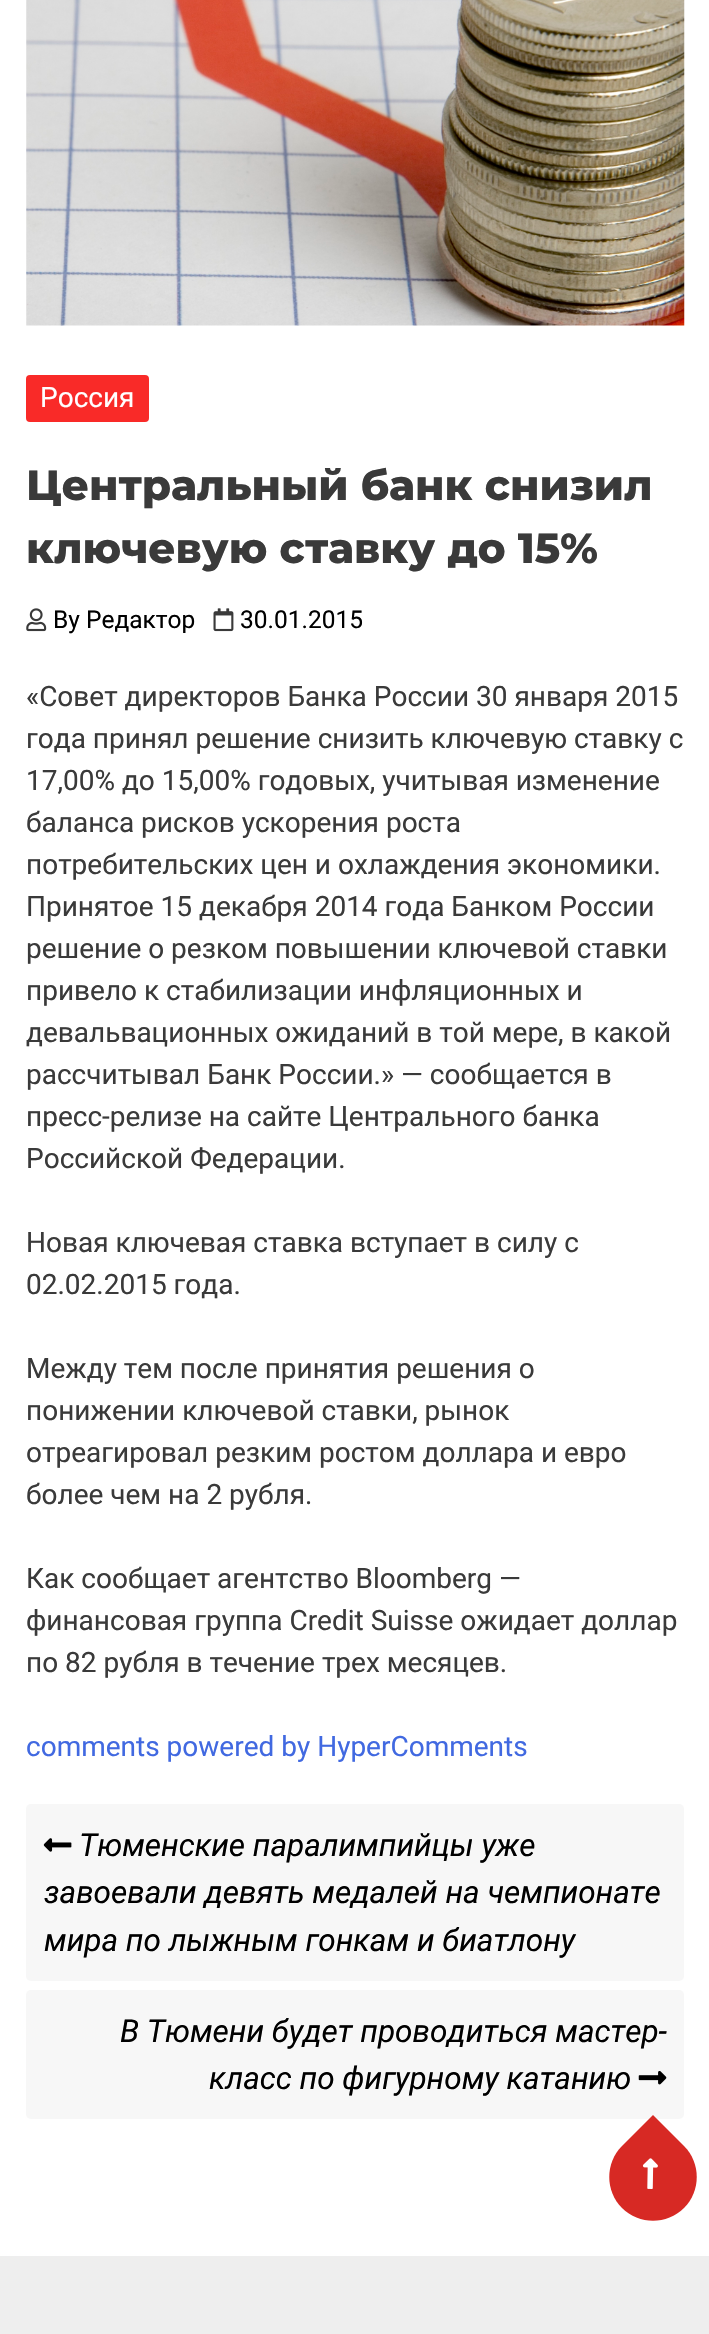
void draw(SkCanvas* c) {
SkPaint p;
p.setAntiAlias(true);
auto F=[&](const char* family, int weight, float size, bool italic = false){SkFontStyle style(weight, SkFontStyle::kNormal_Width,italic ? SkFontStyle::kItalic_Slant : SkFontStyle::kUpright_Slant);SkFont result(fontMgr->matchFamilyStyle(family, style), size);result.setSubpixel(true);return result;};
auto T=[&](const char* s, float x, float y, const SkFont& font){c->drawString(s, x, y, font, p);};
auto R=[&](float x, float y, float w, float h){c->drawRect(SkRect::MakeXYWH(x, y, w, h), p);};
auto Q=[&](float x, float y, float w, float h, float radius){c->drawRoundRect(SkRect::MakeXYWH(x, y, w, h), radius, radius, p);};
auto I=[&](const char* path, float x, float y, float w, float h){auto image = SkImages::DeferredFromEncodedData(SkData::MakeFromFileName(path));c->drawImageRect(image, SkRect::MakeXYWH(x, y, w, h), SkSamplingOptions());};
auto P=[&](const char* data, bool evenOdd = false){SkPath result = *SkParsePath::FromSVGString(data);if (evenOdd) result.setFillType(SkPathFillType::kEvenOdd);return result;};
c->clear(0xffffffff);
I("1.png",26,0,659,326);
p.setColor(0xfff92a28);
Q(26,375,123,47,4);
auto f1 = F("Roboto",400,28);
p.setColor(0xffffffff);
T("Россия",40,407,f1);
auto f2 = F("Montserrat",800,42);
p.setColor(0xff3a3a3a);
T("Центральный банк снизил",26,500,f2);
T("ключевую ставку до 15%",26,563,f2);
I("2.png",26,608,21,24);
auto f3 = F("Roboto",400,24.5);
p.setColor(0xff000000);
T("By Редактор",53,628,f3);
I("3.png",213,608,21,24);
T("30.01.2015",240,628,f3);
p.setColor(0xff3a3a3a);
T("«Совет директоров Банка России 30 января 2015",26,706,f1);
T("года принял решение снизить ключевую ставку c",26,748,f1);
T("17,00% до 15,00% годовых, учитывая изменение",26,790,f1);
T("баланса рисков ускорения роста",26,832,f1);
T("потребительских цен и охлаждения экономики.",26,874,f1);
T("Принятое 15 декабря 2014 года Банком России",26,916,f1);
T("решение о резком повышении ключевой ставки",26,958,f1);
T("привело к стабилизации инфляционных и",26,1000,f1);
T("девальвационных ожиданий в той мере, в какой",26,1042,f1);
T("рассчитывал Банк России.» — сообщается в",26,1084,f1);
T("пресс-релизе на сайте Центрального банка",26,1126,f1);
T("Российской Федерации.",26,1168,f1);
T("Новая ключевая ставка вступает в силу с",26,1252,f1);
T("02.02.2015 года.",26,1294,f1);
T("Между тем после принятия решения о",26,1378,f1);
T("понижении ключевой ставки, рынок",26,1420,f1);
T("отреагировал резким ростом доллара и евро",26,1462,f1);
T("более чем на 2 рубля.",26,1504,f1);
T("Как сообщает агентство Bloomberg —",26,1588,f1);
T("финансовая группа Credit Suisse ожидает доллар",26,1630,f1);
T("по 82 рубля в течение трех месяцев.",26,1672,f1);
p.setColor(0xff4169e1);
T("comments powered by HyperComments",26,1756,f1);
p.setColor(0xfff7f7f7);
Q(26,1804,658,177,5);
I("4.png",43,1838,29,14);
auto f4 = F("Roboto",400,31.5,true);
p.setColor(0xff000000);
T("Тюменские паралимпийцы уже",79,1856,f4);
T("завоевали девять медалей на чемпионате",44,1903,f4);
T("мира по лыжным гонкам и биатлону",44,1951,f4);
p.setColor(0xfff7f7f7);
Q(26,1990,658,129,5);
p.setColor(0xff000000);
T("В Тюмени будет проводиться мастер-",120,2042,f4);
T("класс по фигурному катанию",209,2089,f4);
I("5.png",638,2071,29,14);
p.setColor(0xffd72924);
c->drawPath(P("M622 2146l31-31l31 31c17 17 17 45 0 62c-17 17-45 17-62 0c-17-17-17-45 0-62z"),p);
I("6.png",642,2158,16,31);
p.setColor(0xffeeeeee);
R(0,2256,709,78);
}
